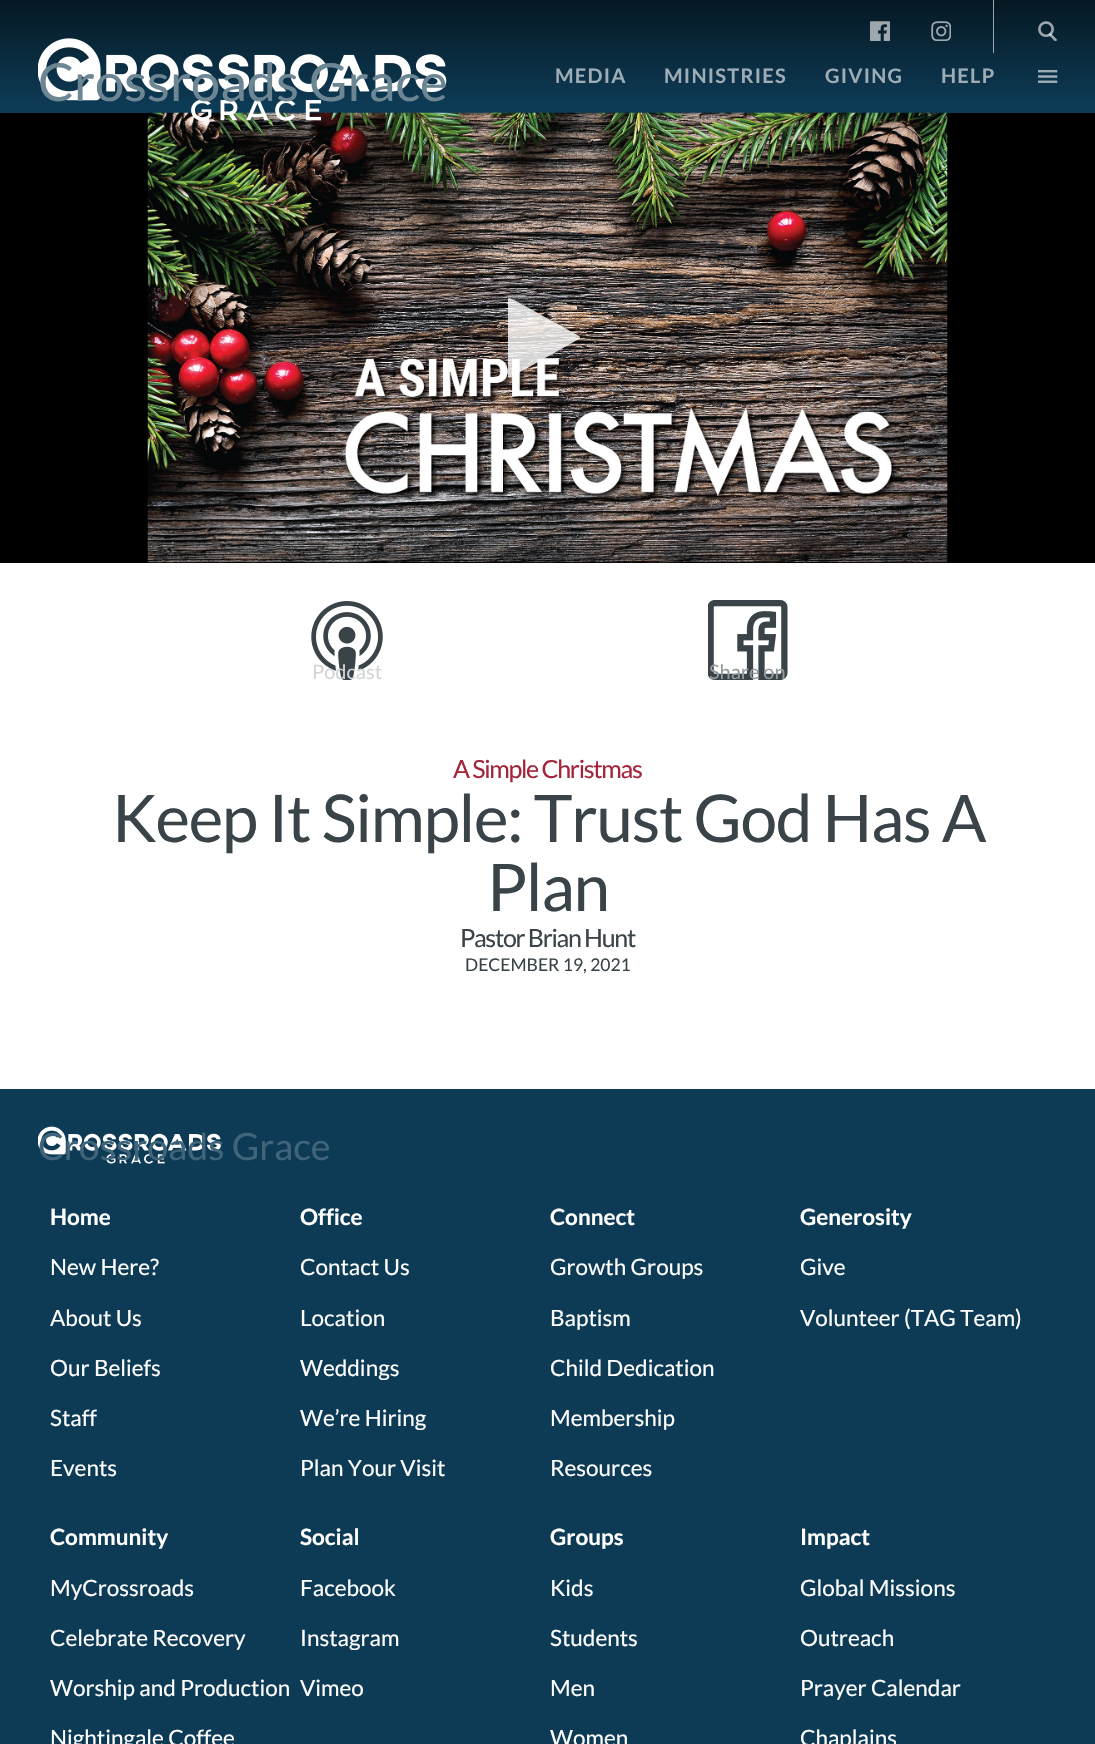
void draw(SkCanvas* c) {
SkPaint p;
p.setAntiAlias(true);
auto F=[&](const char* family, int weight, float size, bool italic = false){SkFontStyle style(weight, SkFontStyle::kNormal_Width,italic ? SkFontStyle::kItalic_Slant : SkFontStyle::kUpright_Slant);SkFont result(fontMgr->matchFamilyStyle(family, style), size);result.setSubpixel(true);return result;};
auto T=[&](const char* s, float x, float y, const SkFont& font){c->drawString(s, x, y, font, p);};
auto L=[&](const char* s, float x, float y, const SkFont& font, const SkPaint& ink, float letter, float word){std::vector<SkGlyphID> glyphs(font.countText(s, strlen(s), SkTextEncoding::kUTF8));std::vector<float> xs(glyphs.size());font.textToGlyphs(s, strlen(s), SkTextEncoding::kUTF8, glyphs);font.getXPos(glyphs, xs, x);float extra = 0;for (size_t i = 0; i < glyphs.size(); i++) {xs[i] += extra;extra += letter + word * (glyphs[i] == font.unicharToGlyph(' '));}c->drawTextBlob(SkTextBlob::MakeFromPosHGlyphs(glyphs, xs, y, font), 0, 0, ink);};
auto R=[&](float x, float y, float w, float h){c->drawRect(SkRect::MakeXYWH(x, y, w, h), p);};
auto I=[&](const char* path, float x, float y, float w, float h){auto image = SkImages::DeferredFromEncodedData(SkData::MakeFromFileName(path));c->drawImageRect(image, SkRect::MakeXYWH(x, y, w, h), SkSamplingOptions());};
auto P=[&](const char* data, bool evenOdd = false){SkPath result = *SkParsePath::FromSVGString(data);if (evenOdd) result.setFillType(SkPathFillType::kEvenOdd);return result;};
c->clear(0xff0d3b56);
{
const SkColor colors[] = {0x00000000,0x99000000};
const float stops[] = {.05,1};
const SkPoint ends[] = {{548,113}, {548,0}};
p.setShader(SkGradientShader::MakeLinear(ends, colors, stops, 2, SkTileMode::kClamp));
p.setAlpha(255);
}
R(0,0,1095,102);
I("1.png",870,21,20,20);
I("2.png",931,21,20,20);
p.setShader(nullptr);
p.setColor(0x99ffffff);
R(993,0,1,53);
I("3.png",1038,21,19,20);
p.setColor(0xff000000);
R(0,113,1095,450);
I("6.png",147,112,801,451);
I("4.png",38,38,409,83);
auto f1 = F("Lato",400,52.5);
p.setColor(0xff6d8694);
T("Crossroads Grace",38,101,f1);
auto f2 = F("Lato",700,20);
p.setColor(0xff9dacb5);
L("MEDIA",555,83,f2,p,1.25,0);
L("MINISTRIES",664,83,f2,p,1.25,0);
L("GIVING",825,83,f2,p,1.25,0);
L("HELP",941,83,f2,p,1.25,0);
I("5.png",1038,70,20,13);
p.setColor(0xffffffff);
R(0,563,1095,526);
p.setColor(0xccffffff);
c->drawPath(P("M579 339l-57 32c-1 0-12 9-14 6v-78l1-1c2-1 42 23 47 25l23 13l1 1c0 1 0 2-1 2z"),p);
I("7.png",311,601,72,79);
auto f3 = F("Lato",400,20);
p.setColor(0xffd3d5d6);
T("Podcast",312,679,f3);
I("8.png",708,600,80,80);
p.setColor(0xff959b9d);
T("Share on",709,679,f3);
auto f4 = F("Lato",400,25);
p.setColor(0xffa4243b);
L("A Simple Christmas",453,778,f4,p,-1.3,0);
auto f5 = F("Lato",400,65.75);
p.setColor(0xff394348);
L("Keep It Simple: Trust God Has A",112,842,f5,p,-1.3,0);
L("Plan",487,911,f5,p,-1.3,0);
L("Pastor Brian Hunt",460,947,f4,p,-1.3,0);
auto f6 = F("Lato",400,17.5);
T("DECEMBER 19, 2021",465,971,f6);
I("9.png",38,1126,183,38);
auto f7 = F("Lato",400,37.5);
p.setColor(0xff40657a);
T("Crossroads Grace",38,1160,f7);
auto f8 = F("Lato",700,22.5);
p.setColor(0xffffffff);
T("Home",50,1225,f8);
auto f9 = F("Lato",400,22.5);
T("New Here?",50,1275,f9);
T("About Us",50,1326,f9);
T("Our Beliefs",50,1376,f9);
T("Staff",50,1426,f9);
T("Events",50,1476,f9);
T("Office",300,1225,f8);
T("Contact Us",300,1275,f9);
T("Location",300,1326,f9);
T("Weddings",300,1376,f9);
T("We’re Hiring",300,1426,f9);
T("Plan Your Visit",300,1476,f9);
T("Connect",550,1225,f8);
T("Growth Groups",550,1275,f9);
T("Baptism",550,1326,f9);
T("Child Dedication",550,1376,f9);
T("Membership",550,1426,f9);
T("Resources",550,1476,f9);
T("Generosity",800,1225,f8);
T("Give",800,1275,f9);
T("Volunteer (TAG Team)",800,1326,f9);
T("Community",50,1545,f8);
T("MyCrossroads",50,1596,f9);
T("Celebrate Recovery",50,1646,f9);
T("Worship and Production",50,1696,f9);
T("Nightingale Coffee",50,1746,f9);
T("Social",300,1545,f8);
T("Facebook",300,1596,f9);
T("Instagram",300,1646,f9);
T("Vimeo",300,1696,f9);
T("Groups",550,1545,f8);
T("Kids",550,1596,f9);
T("Students",550,1646,f9);
T("Men",550,1696,f9);
T("Women",550,1746,f9);
T("Impact",800,1545,f8);
T("Global Missions",800,1596,f9);
T("Outreach",800,1646,f9);
T("Prayer Calendar",800,1696,f9);
T("Chaplains",800,1746,f9);
}
